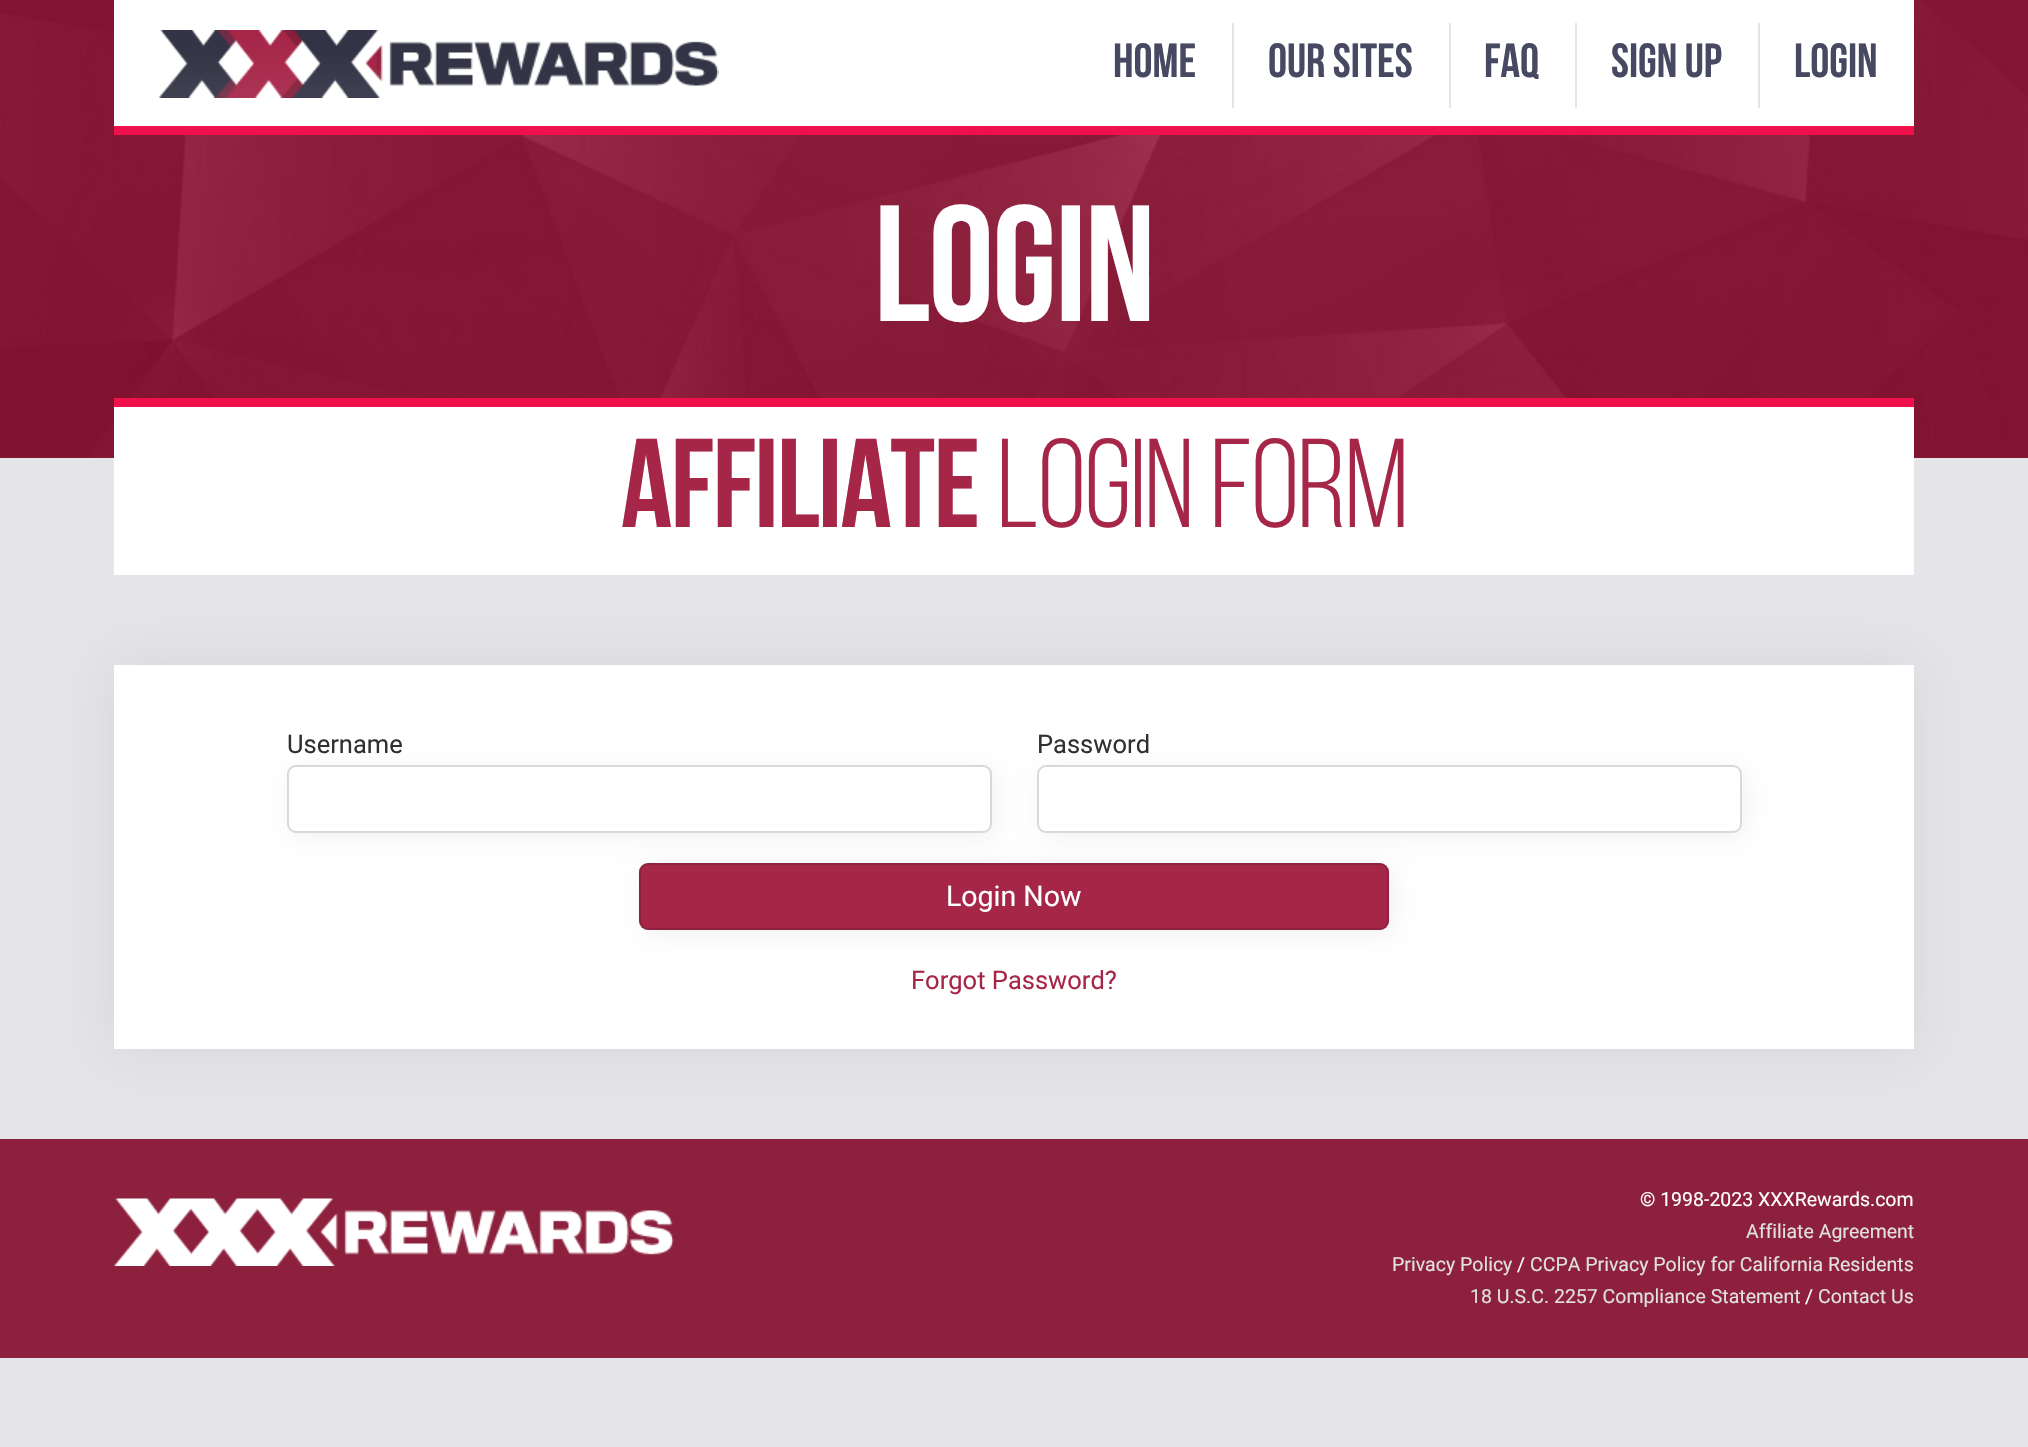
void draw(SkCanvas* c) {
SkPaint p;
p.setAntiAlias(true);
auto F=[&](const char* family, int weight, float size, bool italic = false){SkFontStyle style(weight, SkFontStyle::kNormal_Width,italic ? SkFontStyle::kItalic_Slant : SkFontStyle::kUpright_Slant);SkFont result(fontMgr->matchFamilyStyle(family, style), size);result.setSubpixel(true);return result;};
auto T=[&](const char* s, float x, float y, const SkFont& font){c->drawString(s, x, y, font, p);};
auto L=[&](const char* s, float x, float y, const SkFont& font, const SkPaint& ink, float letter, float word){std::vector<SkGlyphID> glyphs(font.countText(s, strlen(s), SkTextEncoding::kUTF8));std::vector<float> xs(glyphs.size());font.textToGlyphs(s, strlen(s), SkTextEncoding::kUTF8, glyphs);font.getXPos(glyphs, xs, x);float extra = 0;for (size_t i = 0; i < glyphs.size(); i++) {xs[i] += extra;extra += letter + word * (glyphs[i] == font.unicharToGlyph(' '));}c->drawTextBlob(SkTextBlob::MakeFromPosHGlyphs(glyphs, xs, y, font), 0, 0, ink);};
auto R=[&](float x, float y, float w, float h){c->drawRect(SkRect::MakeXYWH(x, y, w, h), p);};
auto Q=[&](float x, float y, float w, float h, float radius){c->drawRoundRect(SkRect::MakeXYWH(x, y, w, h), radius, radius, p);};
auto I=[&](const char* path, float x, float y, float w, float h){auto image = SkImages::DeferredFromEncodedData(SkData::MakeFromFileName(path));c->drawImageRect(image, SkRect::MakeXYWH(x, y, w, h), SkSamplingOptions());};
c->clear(0xffe5e4e9);
p.setColor(0xff8c203d);
R(0,457,2028,1);
I("2.png",0,0,2028,458);
p.setColor(0xffffffff);
R(114,0,1800,126);
p.setColor(0xffef104c);
R(114,126,1800,9);
I("1.png",159,30,560,68);
auto f1 = F("Bebas Neue",700,48);
p.setColor(0xff474962);
T("Home",1113,77,f1);
p.setColor(0xffe3e4e7);
R(1232,23,2,85);
p.setColor(0xff474962);
T("Our Sites",1268,77,f1);
p.setColor(0xffe3e4e7);
R(1449,23,2,85);
p.setColor(0xff474962);
T("FAQ",1484,77,f1);
p.setColor(0xffe3e4e7);
R(1575,23,2,85);
p.setColor(0xff474962);
T("Sign Up",1611,77,f1);
p.setColor(0xffe3e4e7);
R(1758,23,2,85);
p.setColor(0xff474962);
T("Login",1794,77,f1);
auto f2 = F("Bebas Neue",700,165);
p.setColor(0xffffffff);
L("Login",874,321,f2,p,-1.5,0);
R(114,407,1800,168);
p.setColor(0xffef104c);
R(114,398,1800,9);
auto f3 = F("Bebas Neue",700,126);
p.setColor(0xffa62648);
L("Affiliate",621,527,f3,p,-1.5,0);
auto f4 = F("Bebas Neue",400,126);
L("Login Form",997,527,f4,p,-1.5,0);
p.setColor(0x12000000);
p.setMaskFilter(SkMaskFilter::MakeBlur(kNormal_SkBlurStyle, 26));
c->drawRect(SkRect::MakeXYWH(114,665,1800,384),p);
p.setMaskFilter(nullptr);
p.setColor(0xffffffff);
R(114,665,1800,384);
auto f5 = F("Roboto",400,25.5);
p.setColor(0xff303030);
T("Username",287,753,f5);
p.setColor(0x0d000000);
p.setMaskFilter(SkMaskFilter::MakeBlur(kNormal_SkBlurStyle, 10.5));
c->drawRoundRect(SkRect::MakeXYWH(291,770,705,67),9,9,p);
p.setMaskFilter(nullptr);
p.setColor(0xffffffff);
Q(287,765,705,68,9);
p.setStroke(true);
p.setStrokeWidth(2);
p.setColor(0x26000000);
c->drawRoundRect(SkRect::MakeXYWH(288,766,703,66),8,8,p);
p.setStroke(false);
p.setColor(0xff303030);
T("Password",1037,753,f5);
p.setColor(0x0d000000);
p.setMaskFilter(SkMaskFilter::MakeBlur(kNormal_SkBlurStyle, 10.5));
c->drawRoundRect(SkRect::MakeXYWH(1041,770,705,67),9,9,p);
p.setMaskFilter(nullptr);
p.setColor(0xffffffff);
Q(1037,765,705,68,9);
p.setStroke(true);
p.setColor(0x26000000);
c->drawRoundRect(SkRect::MakeXYWH(1038,766,703,66),8,8,p);
p.setStroke(false);
p.setColor(0x0d000000);
p.setMaskFilter(SkMaskFilter::MakeBlur(kNormal_SkBlurStyle, 10.5));
c->drawRoundRect(SkRect::MakeXYWH(644,867,750,68),9,9,p);
p.setMaskFilter(nullptr);
p.setColor(0xffa62648);
Q(639,863,750,67,9);
p.setStroke(true);
p.setColor(0x26000000);
c->drawRoundRect(SkRect::MakeXYWH(640,864,748,65),8,8,p);
auto f6 = F("Roboto",400,28.5);
p.setStroke(false);
p.setColor(0xffffffff);
T("Login Now",946,906,f6);
p.setColor(0xffa62648);
T("Forgot Password?",911,989,f5);
p.setColor(0xff8c203d);
R(0,1139,2028,219);
I("3.png",114,1198,560,68);
auto f7 = F("Roboto",400,19.5);
p.setColor(0xffffffff);
T("© 1998-2023 XXXRewards.com",1640,1206,f7);
p.setColor(0xffe0e0e0);
T("Affiliate Agreement",1746,1238,f7);
T("Privacy Policy",1392,1271,f7);
p.setColor(0xffffffff);
T("/",1517,1271,f7);
p.setColor(0xffe0e0e0);
T("CCPA Privacy Policy for California Residents",1530,1271,f7);
T("18 U.S.C. 2257 Compliance Statement",1470,1303,f7);
p.setColor(0xffffffff);
T("/",1805,1303,f7);
p.setColor(0xffe0e0e0);
T("Contact Us",1818,1303,f7);
}
